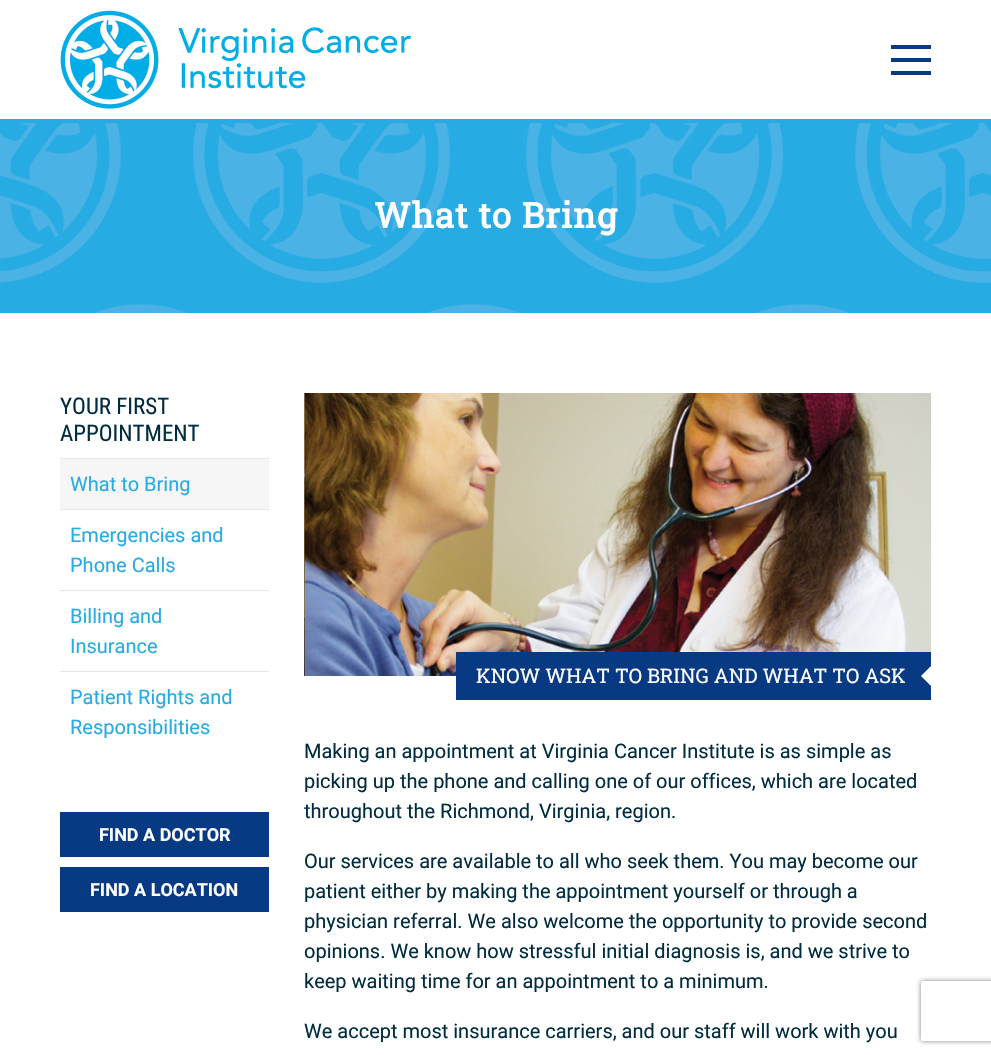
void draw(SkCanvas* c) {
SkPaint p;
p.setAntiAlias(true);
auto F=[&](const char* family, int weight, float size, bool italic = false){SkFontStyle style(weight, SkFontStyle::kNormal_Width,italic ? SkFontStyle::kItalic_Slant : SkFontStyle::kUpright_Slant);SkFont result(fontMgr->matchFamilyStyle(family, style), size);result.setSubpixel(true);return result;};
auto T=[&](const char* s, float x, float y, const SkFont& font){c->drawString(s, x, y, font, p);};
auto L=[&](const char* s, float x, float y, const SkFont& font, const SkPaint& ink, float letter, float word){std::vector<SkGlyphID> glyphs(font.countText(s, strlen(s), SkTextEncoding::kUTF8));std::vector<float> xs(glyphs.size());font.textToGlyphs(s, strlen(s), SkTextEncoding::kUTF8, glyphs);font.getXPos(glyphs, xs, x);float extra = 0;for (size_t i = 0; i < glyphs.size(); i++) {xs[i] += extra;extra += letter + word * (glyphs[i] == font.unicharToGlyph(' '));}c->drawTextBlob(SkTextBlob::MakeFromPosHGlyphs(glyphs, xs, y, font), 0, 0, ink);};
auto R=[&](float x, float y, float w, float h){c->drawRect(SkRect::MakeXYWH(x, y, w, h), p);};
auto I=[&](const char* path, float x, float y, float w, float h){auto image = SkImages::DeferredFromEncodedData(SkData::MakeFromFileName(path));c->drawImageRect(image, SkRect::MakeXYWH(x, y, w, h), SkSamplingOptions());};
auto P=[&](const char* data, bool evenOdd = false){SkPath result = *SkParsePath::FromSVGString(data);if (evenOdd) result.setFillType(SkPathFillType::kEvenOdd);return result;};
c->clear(0xffffffff);
p.setColor(0xff26abe2);
R(0,119,991,4);
I("1.png",60,10,351,99);
p.setColor(0xff083a83);
R(891,45,40,4);
R(891,58,40,4);
R(891,71,40,4);
I("2.png",0,123,991,190);
auto f1 = F("Roboto Slab",700,35);
p.setColor(0xffffffff);
L("What to Bring",374,228,f1,p,1,0);
auto f2 = F("Roboto Condensed",400,23);
p.setColor(0xff002c40);
T("YOUR FIRST",60,414,f2);
T("APPOINTMENT",60,441,f2);
p.setColor(0xffe6e6e6);
R(60,458,209,1);
p.setColor(0xfff6f6f6);
R(60,459,209,50);
auto f3 = F("Roboto",400,20);
p.setColor(0xff26abe2);
T("What to Bring",70,491,f3);
p.setColor(0xffe6e6e6);
R(60,509,209,1);
p.setColor(0xff26abe2);
T("Emergencies and",70,542,f3);
T("Phone Calls",70,572,f3);
p.setColor(0xffe6e6e6);
R(60,590,209,1);
p.setColor(0xff26abe2);
T("Billing and",70,623,f3);
T("Insurance",70,653,f3);
p.setColor(0xffe6e6e6);
R(60,671,209,1);
p.setColor(0xff26abe2);
T("Patient Rights and",70,704,f3);
T("Responsibilities",70,734,f3);
p.setColor(0xff083a83);
R(60,812,209,45);
auto f4 = F("Roboto",700,18);
p.setColor(0xffffffff);
T("FIND A DOCTOR",99,841,f4);
p.setColor(0xff083a83);
R(60,867,209,45);
p.setColor(0xffffffff);
T("FIND A LOCATION",90,896,f4);
I("3.png",304,393,627,283);
p.setColor(0xff083a83);
R(456,652,475,48);
auto f5 = F("Roboto Slab",400,20);
p.setColor(0xffffffff);
T("KNOW WHAT TO BRING AND WHAT TO ASK",476,683,f5);
c->drawPath(P("M931 666v20l-10-10z"),p);
p.setColor(0xff002c40);
T("Making an appointment at Virginia Cancer Institute is as simple as",304,758,f3);
T("picking up the phone and calling one of our offices, which are located",304,788,f3);
T("throughout the Richmond, Virginia, region.",304,818,f3);
T("Our services are available to all who seek them. You may become our",304,868,f3);
T("patient either by making the appointment yourself or through a",304,898,f3);
T("physician referral. We also welcome the opportunity to provide second",304,928,f3);
T("opinions. We know how stressful initial diagnosis is, and we strive to",304,958,f3);
T("keep waiting time for an appointment to a minimum.",304,988,f3);
T("We accept most insurance carriers, and our staff will work with you",304,1038,f3);
c->save();
c->clipPath(P("M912 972h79v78h-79zm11 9h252c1 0 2 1 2 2v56c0 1-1 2-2 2h-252c-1 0-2-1-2-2v-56c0-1 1-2 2-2z",true),true);
p.setColor(0xff808080);
p.setMaskFilter(SkMaskFilter::MakeBlur(kNormal_SkBlurStyle, 2.5));
c->drawRoundRect(SkRect::MakeXYWH(921,981,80,60),2,2,p);
p.setMaskFilter(nullptr);
c->restore();
}
